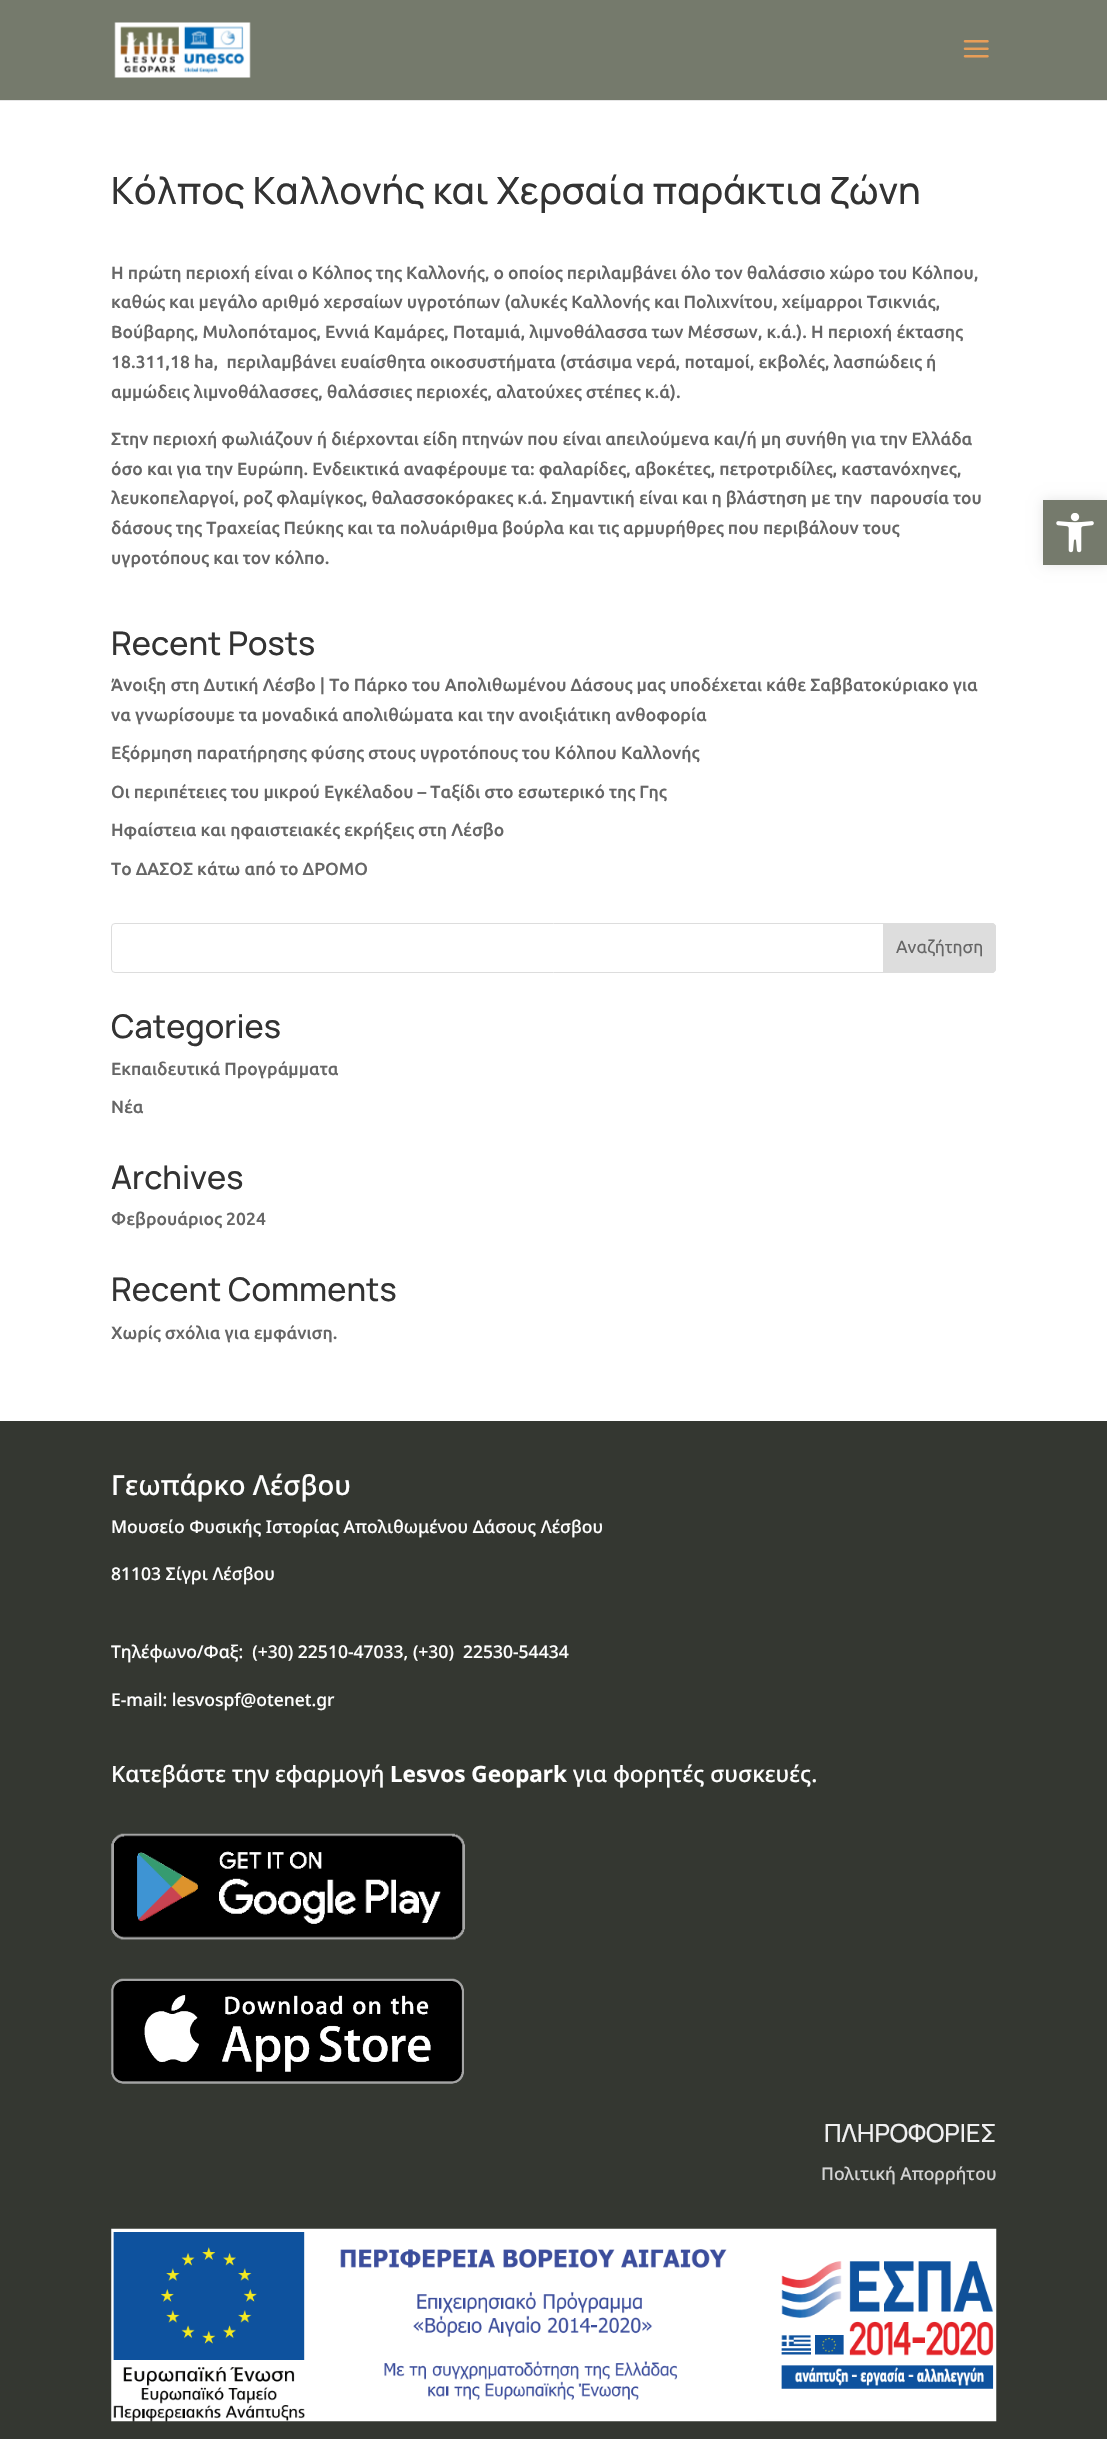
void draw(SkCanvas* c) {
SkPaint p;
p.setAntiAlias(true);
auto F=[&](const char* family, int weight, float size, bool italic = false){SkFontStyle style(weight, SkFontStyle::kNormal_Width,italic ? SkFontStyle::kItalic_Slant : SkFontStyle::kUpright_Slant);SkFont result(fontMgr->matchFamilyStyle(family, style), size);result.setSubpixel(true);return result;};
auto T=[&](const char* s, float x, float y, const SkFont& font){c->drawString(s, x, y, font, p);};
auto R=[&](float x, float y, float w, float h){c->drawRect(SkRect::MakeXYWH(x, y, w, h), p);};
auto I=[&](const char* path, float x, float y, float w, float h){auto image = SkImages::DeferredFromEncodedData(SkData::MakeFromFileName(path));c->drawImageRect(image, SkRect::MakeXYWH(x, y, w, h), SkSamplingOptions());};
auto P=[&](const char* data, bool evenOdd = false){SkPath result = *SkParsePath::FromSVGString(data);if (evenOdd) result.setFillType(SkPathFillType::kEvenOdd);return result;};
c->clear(0xffffffff);
p.setColor(0xffe6e6e6);
c->drawPath(P("M0 100v1h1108v-100v99z"),p);
p.setColor(0xff757a6c);
R(0,0,1107,100);
I("1.png",114,22,137,56);
I("2.png",963,40,26,18);
auto f1 = F("Manrope",500,37.5);
p.setColor(0xff333333);
T("Κόλπος Καλλονής και Χερσαία παράκτια ζώνη",111,204,f1);
auto f2 = F("Ubuntu",500,17.5);
p.setColor(0xff666666);
T("Η πρώτη περιοχή είναι ο Κόλπος της Καλλονής, ο οποίος περιλαμβάνει όλο τον θαλάσσιο χώρο του Κόλπου,",111,279,f2);
T("καθώς και μεγάλο αριθμό χερσαίων υγροτόπων (αλυκές Καλλονής και Πολιχνίτου, χείμαρροι Τσικνιάς,",111,308,f2);
T("Βούβαρης, Μυλοπόταμος, Εννιά Καμάρες, Ποταμιά, λιμνοθάλασσα των Μέσσων, κ.ά.). Η περιοχή έκτασης",111,338,f2);
T("18.311,18 ha,  περιλαμβάνει ευαίσθητα οικοσυστήματα (στάσιμα νερά, ποταμοί, εκβολές, λασπώδεις ή",111,368,f2);
T("αμμώδεις λιμνοθάλασσες, θαλάσσιες περιοχές, αλατούχες στέπες κ.ά).",111,398,f2);
T("Στην περιοχή φωλιάζουν ή διέρχονται είδη πτηνών που είναι απειλούμενα και/ή μη συνήθη για την Ελλάδα",111,445,f2);
T("όσο και για την Ευρώπη. Ενδεικτικά αναφέρουμε τα: φαλαρίδες, αβοκέτες, πετροτριδίλες, καστανόχηνες,",111,475,f2);
T("λευκοπελαργοί, ροζ φλαμίγκος, θαλασσοκόρακες κ.ά. Σημαντική είναι και η βλάστηση με την  παρουσία του",111,504,f2);
T("δάσους της Τραχείας Πεύκης και τα πολυάριθμα βούρλα και τις αρμυρήθρες που περιβάλουν τους",111,534,f2);
T("υγροτόπους και τον κόλπο.",111,564,f2);
auto f3 = F("Manrope",500,32.5);
p.setColor(0xff333333);
T("Recent Posts",111,655,f3);
p.setColor(0xff666666);
T("Άνοιξη στη Δυτική Λέσβο | Το Πάρκο του Απολιθωμένου Δάσους μας υποδέχεται κάθε Σαββατοκύριακο για",111,691,f2);
T("να γνωρίσουμε τα μοναδικά απολιθώματα και την ανοιξιάτικη ανθοφορία",111,721,f2);
T("Εξόρμηση παρατήρησης φύσης στους υγροτόπους του Κόλπου Καλλονής",111,759,f2);
T("Οι περιπέτειες του μικρού Εγκέλαδου – Ταξίδι στο εσωτερικό της Γης",111,798,f2);
T("Ηφαίστεια και ηφαιστειακές εκρήξεις στη Λέσβο",111,836,f2);
T("Το ΔΑΣΟΣ κάτω από το ΔΡΟΜΟ",111,875,f2);
p.setStroke(true);
p.setStrokeWidth(1);
p.setColor(0xffdddddd);
c->drawRoundRect(SkRect::MakeXYWH(111.5,923.5,884,49),3.5,3.5,p);
p.setStroke(false);
c->drawPath(P("M883.5 923.5h108.5c2 0 3.5 1.5 3.5 3.5v42c0 2-1.5 3.5-3.5 3.5h-108.5z"),p);
p.setStroke(true);
c->drawPath(P("M883.5 923.5h108.5c2 0 3.5 1.5 3.5 3.5v42c0 2-1.5 3.5-3.5 3.5h-108.5z"),p);
auto f4 = F("Ubuntu",400,17.5);
p.setStroke(false);
p.setColor(0xff666666);
T("Αναζήτηση",896,953,f4);
p.setColor(0xff333333);
T("Categories",111,1038,f3);
p.setColor(0xff666666);
T("Εκπαιδευτικά Προγράμματα",111,1075,f2);
T("Νέα",111,1113,f2);
p.setColor(0xff333333);
T("Archives",111,1189,f3);
p.setColor(0xff666666);
T("Φεβρουάριος 2024",111,1225,f2);
p.setColor(0xff333333);
T("Recent Comments",111,1301,f3);
p.setColor(0xff666666);
T("Χωρίς σχόλια για εμφάνιση.",111,1339,f2);
p.setColor(0xff343731);
R(0,1421,1107,1018);
auto f5 = F("Noto Sans",500,27.5);
p.setColor(0xffffffff);
T("Γεωπάρκο Λέσβου",111,1495,f5);
auto f6 = F("Noto Sans",500,17.5);
T("Μουσείο Φυσικής Ιστορίας Απολιθωμένου Δάσους Λέσβου",111,1533,f6);
T("81103 Σίγρι Λέσβου",111,1580,f6);
T("Τηλέφωνο/Φαξ:  (+30) 22510-47033, (+30)  22530-54434",111,1658,f6);
T("E-mail: lesvospf@otenet.gr",111,1706,f6);
auto f7 = F("Noto Sans",500,22.5);
T("Κατεβάστε την εφαρμογή",111,1782,f7);
auto f8 = F("Noto Sans",700,22.5);
T("Lesvos Geopark",390,1782,f8);
T("για φορητές συσκευές.",573,1782,f7);
I("3.png",111,1833,354,107);
I("4.png",111,1978,353,106);
auto f9 = F("Manrope",500,25);
p.setColor(0xfff0f0f1);
T("ΠΛΗΡΟΦΟΡΙΕΣ",824,2142,f9);
p.setColor(0xffd3d3d3);
T("Πολιτική Απορρήτου",821,2180,f6);
I("5.png",111,2228,886,194);
p.setColor(0x1a000000);
p.setMaskFilter(SkMaskFilter::MakeBlur(kNormal_SkBlurStyle, 6));
c->drawRect(SkRect::MakeXYWH(1043,500,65,65),p);
p.setMaskFilter(nullptr);
p.setColor(0xff757a6c);
R(1043,500,64,65);
I("6.png",1056,513,38,40);
}
